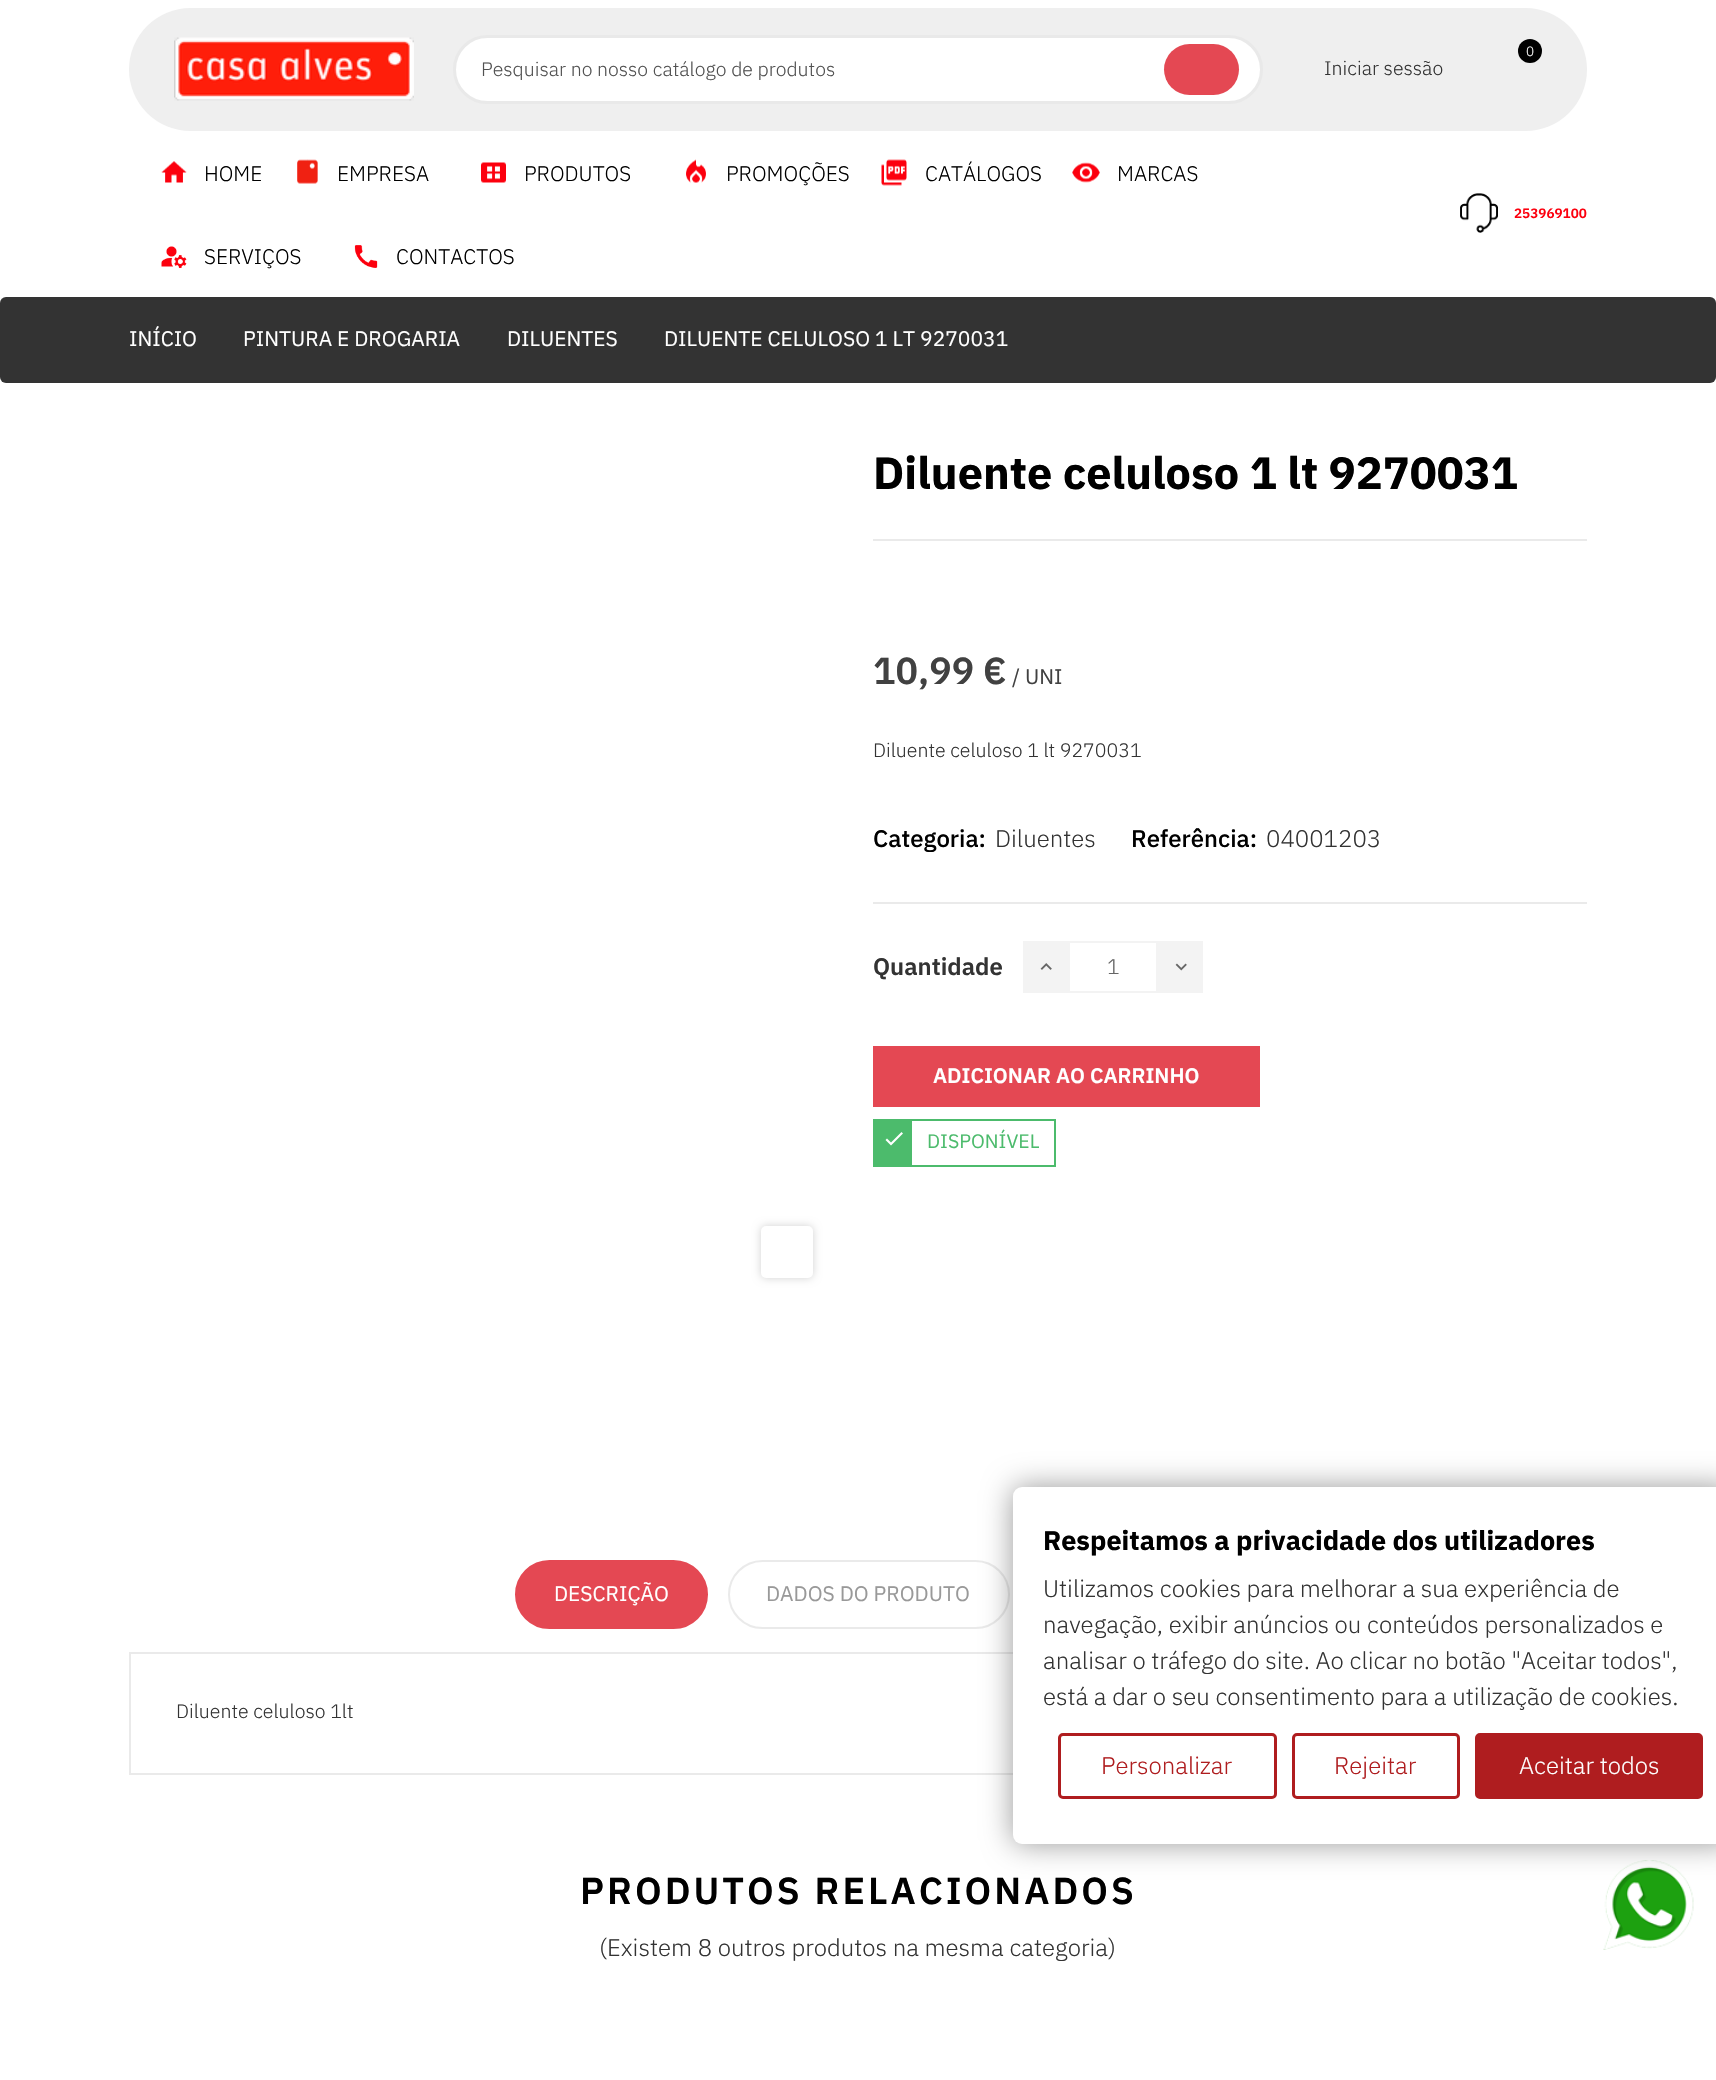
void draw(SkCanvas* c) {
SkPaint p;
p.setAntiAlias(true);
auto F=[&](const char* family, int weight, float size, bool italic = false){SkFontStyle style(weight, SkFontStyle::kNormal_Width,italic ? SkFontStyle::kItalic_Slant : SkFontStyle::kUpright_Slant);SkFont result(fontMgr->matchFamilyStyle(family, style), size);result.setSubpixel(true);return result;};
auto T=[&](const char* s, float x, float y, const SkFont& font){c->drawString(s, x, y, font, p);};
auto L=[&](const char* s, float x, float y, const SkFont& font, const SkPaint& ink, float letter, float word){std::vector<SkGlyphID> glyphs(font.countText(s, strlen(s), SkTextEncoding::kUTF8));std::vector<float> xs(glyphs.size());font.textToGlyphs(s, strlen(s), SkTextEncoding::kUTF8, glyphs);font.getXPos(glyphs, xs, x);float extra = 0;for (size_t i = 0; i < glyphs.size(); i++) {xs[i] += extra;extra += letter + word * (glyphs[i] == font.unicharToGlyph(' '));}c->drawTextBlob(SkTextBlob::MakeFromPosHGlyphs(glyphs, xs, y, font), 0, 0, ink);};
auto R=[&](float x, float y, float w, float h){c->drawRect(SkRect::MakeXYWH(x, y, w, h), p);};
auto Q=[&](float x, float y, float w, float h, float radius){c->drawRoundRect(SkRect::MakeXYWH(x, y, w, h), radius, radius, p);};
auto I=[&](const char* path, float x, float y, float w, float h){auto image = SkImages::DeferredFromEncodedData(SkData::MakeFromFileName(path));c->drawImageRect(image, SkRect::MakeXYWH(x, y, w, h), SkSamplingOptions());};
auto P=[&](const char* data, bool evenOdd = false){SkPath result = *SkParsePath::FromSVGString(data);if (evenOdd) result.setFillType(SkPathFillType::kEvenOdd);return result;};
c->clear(0xffffffff);
p.setColor(0xffefefef);
Q(129,8,1458,123,61.5);
I("1.png",174,37,240,64);
p.setColor(0xffffffff);
c->drawRoundRect(SkRect::MakeXYWH(454.5,36.5,807,66),33,33,p);
p.setStroke(true);
p.setStrokeWidth(3);
p.setColor(0xffe9e9e9);
c->drawRoundRect(SkRect::MakeXYWH(454.5,36.5,807,66),33,33,p);
auto f1 = F("IBM Plex Sans",300,19.5);
p.setStroke(false);
p.setColor(0xff515151);
T("Pesquisar no nosso catálogo de produtos",481,76,f1);
p.setColor(0xffe44853);
Q(1164,44,75,51,25.5);
p.setColor(0xff000000);
c->drawCircle(1530,51,12,p);
auto f2 = F("IBM Plex Sans",300,13.5);
p.setColor(0xffffffff);
T("0",1526,56,f2);
p.setColor(0xff333333);
T("Iniciar sessão",1324,75,f1);
I("2.png",161,161,26,22);
auto f3 = F("IBM Plex Sans",300,21);
p.setColor(0xff000000);
T("HOME",204,181,f3);
I("3.png",297,159,21,25);
T("EMPRESA",337,181,f3);
I("4.png",481,162,25,21);
T("PRODUTOS",524,181,f3);
I("5.png",686,159,20,24);
T("PROMOÇÕES",726,181,f3);
I("6.png",881,159,26,27);
T("CATÁLOGOS",925,181,f3);
I("7.png",1072,162,28,21);
T("MARCAS",1117,181,f3);
I("8.png",161,246,26,22);
T("SERVIÇOS",204,264,f3);
I("9.png",354,245,24,23);
T("CONTACTOS",396,264,f3);
I("10.png",1460,193,38,40);
auto f4 = F("IBM Plex Sans",600,13.5);
p.setColor(0xfffc000e);
T("253969100",1514,218,f4);
p.setColor(0xff333333);
Q(0,297,1716,86,6);
auto f5 = F("IBM Plex Sans",400,21);
p.setColor(0xffffffff);
T("INÍCIO",129,346,f5);
T("PINTURA E DROGARIA",243,346,f5);
T("DILUENTES",507,346,f5);
T("DILUENTE CELULOSO 1 LT 9270031",664,346,f5);
auto f6 = F("IBM Plex Sans",700,45);
p.setColor(0xff000000);
T("Diluente celuloso 1 lt 9270031",873,489,f6);
p.setColor(0xffeaeaea);
R(873,539,714,2);
auto f7 = F("IBM Plex Sans",600,37.5);
p.setColor(0xff414141);
T("10,99 €",873,684,f7);
T("/ UNI",1012,684,f5);
p.setColor(0xff333333);
T("Diluente celuloso 1 lt 9270031",873,757,f1);
auto f8 = F("IBM Plex Sans",500,24);
p.setColor(0xff000000);
T("Categoria:",873,847,f8);
auto f9 = F("IBM Plex Sans",300,24);
p.setColor(0xff333333);
T("Diluentes",995,847,f9);
p.setColor(0xff000000);
T("Referência:",1131,847,f8);
p.setColor(0xff333333);
T("04001203",1266,847,f9);
p.setColor(0xffeaeaea);
R(873,902,714,2);
auto f10 = F("IBM Plex Sans",600,24);
p.setColor(0xff333333);
T("Quantidade",873,975,f10);
p.setColor(0xfff3f3f3);
R(1023,941,45,52);
I("11.png",1040,963,12,7);
R(1158,941,45,52);
I("12.png",1175,963,12,8);
p.setStroke(true);
p.setStrokeWidth(2);
c->drawRect(SkRect::MakeXYWH(1069,942,88,50),p);
p.setStroke(false);
p.setColor(0xff666666);
T("1",1107,974,f3);
p.setColor(0xffe44853);
R(873,1046,387,61);
auto f11 = F("IBM Plex Sans",600,21);
p.setColor(0xffffffff);
T("ADICIONAR AO CARRINHO",933,1083,f11);
p.setStroke(true);
p.setColor(0xff4cbb6c);
c->drawRect(SkRect::MakeXYWH(874,1120,181,46),p);
p.setStroke(false);
R(875,1121,37,44);
p.setColor(0xffffffff);
c->drawPath(P("M891 1142.5l10.5-10.5l1.5 1.5l-12 12l-5.5-5.5l1.5-1.5z"),p);
auto f12 = F("IBM Plex Sans",400,19.5);
p.setColor(0xff4cbb6c);
T("DISPONÍVEL",927,1148,f12);
p.setColor(0x2e000000);
p.setMaskFilter(SkMaskFilter::MakeBlur(kNormal_SkBlurStyle, 4));
c->drawRoundRect(SkRect::MakeXYWH(761,1226,52,52),5,5,p);
p.setMaskFilter(nullptr);
p.setColor(0xffffffff);
Q(761,1226,52,52,5);
p.setColor(0xffe44853);
c->drawRoundRect(SkRect::MakeXYWH(516,1561,191,67),33.5,33.5,p);
p.setStroke(true);
c->drawRoundRect(SkRect::MakeXYWH(516,1561,191,67),33.5,33.5,p);
p.setStroke(false);
p.setColor(0xffffffff);
T("DESCRIÇÃO",554,1601,f5);
p.setStroke(true);
p.setColor(0xffeaeaea);
c->drawRoundRect(SkRect::MakeXYWH(729,1561,280,67),33.5,33.5,p);
p.setStroke(false);
p.setColor(0xff999999);
T("DADOS DO PRODUTO",766,1601,f5);
p.setStroke(true);
p.setColor(0xffeaeaea);
c->drawRect(SkRect::MakeXYWH(130,1653,1456,121),p);
p.setStroke(false);
p.setColor(0xff333333);
T("Diluente celuloso 1lt",176,1718,f1);
p.setColor(0xff000000);
L("PRODUTOS RELACIONADOS",580,1904,f7,p,3,0);
p.setColor(0xff333333);
T("(Existem 8 outros produtos na mesma categoria)",599,1956,f9);
I("13.png",1603,1860,91,90);
p.setColor(0x66000000);
p.setMaskFilter(SkMaskFilter::MakeBlur(kNormal_SkBlurStyle, 15));
c->drawRoundRect(SkRect::MakeXYWH(1013,1487,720,357),9,9,p);
p.setMaskFilter(nullptr);
p.setColor(0xffffffff);
Q(1013,1487,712,357,9);
auto f13 = F("IBM Plex Sans",700,27);
p.setColor(0xff000000);
T("Respeitamos a privacidade dos utilizadores",1043,1550,f13);
p.setColor(0xff333333);
T("Utilizamos cookies para melhorar a sua experiência de",1043,1597,f9);
T("navegação, exibir anúncios ou conteúdos personalizados e",1043,1633,f9);
T("analisar o tráfego do site. Ao clicar no botão \"Aceitar todos\",",1043,1669,f9);
T("está a dar o seu consentimento para a utilização de cookies.",1043,1705,f9);
p.setStroke(true);
p.setStrokeWidth(3);
p.setColor(0xffaf1d1f);
c->drawRoundRect(SkRect::MakeXYWH(1059.5,1734.5,216,63),3.5,3.5,p);
p.setStroke(false);
T("Personalizar",1101,1774,f9);
p.setStroke(true);
c->drawRoundRect(SkRect::MakeXYWH(1293.5,1734.5,165,63),3.5,3.5,p);
p.setStroke(false);
T("Rejeitar",1334,1774,f9);
c->drawRoundRect(SkRect::MakeXYWH(1476.5,1734.5,225,63),3.5,3.5,p);
p.setStroke(true);
c->drawRoundRect(SkRect::MakeXYWH(1476.5,1734.5,225,63),3.5,3.5,p);
p.setStroke(false);
p.setColor(0xffffffff);
T("Aceitar todos",1519,1774,f9);
}
